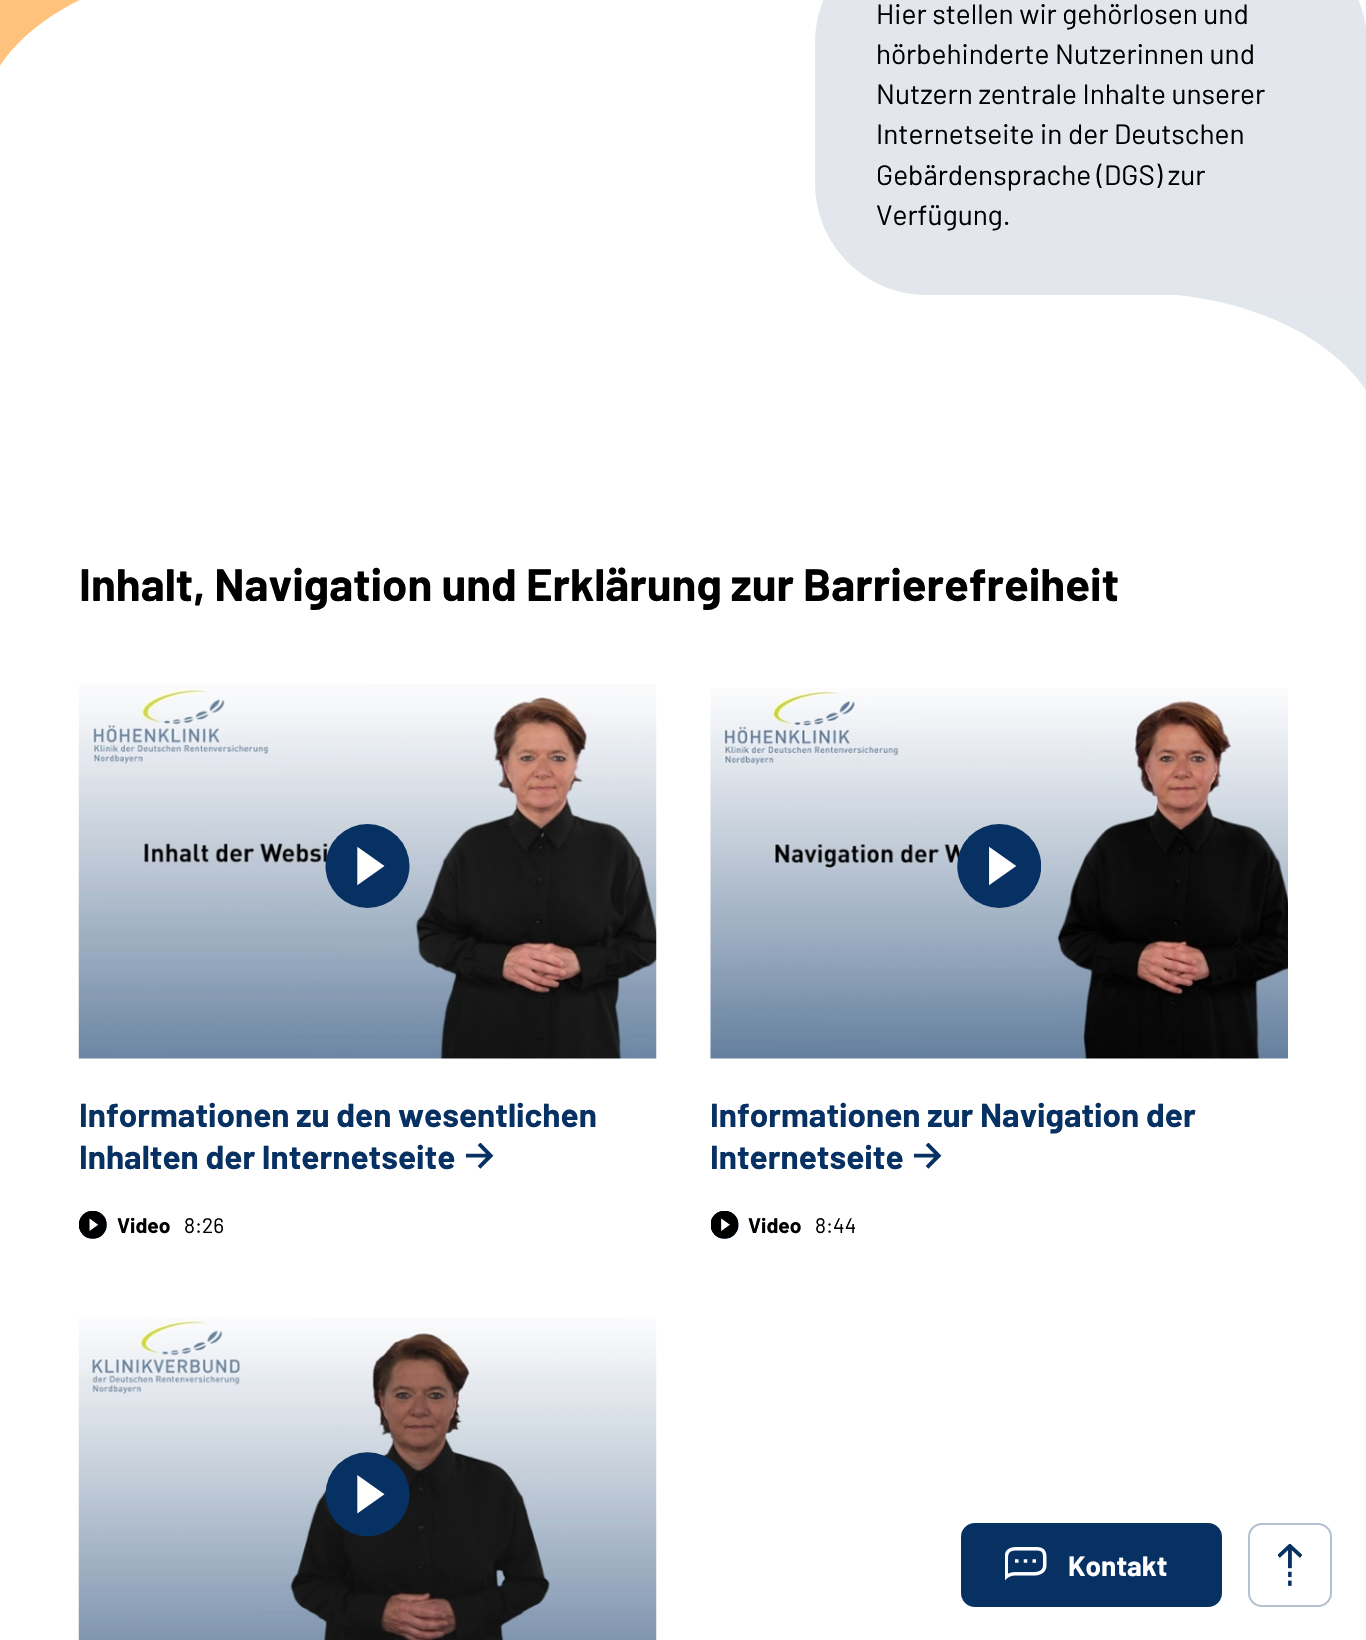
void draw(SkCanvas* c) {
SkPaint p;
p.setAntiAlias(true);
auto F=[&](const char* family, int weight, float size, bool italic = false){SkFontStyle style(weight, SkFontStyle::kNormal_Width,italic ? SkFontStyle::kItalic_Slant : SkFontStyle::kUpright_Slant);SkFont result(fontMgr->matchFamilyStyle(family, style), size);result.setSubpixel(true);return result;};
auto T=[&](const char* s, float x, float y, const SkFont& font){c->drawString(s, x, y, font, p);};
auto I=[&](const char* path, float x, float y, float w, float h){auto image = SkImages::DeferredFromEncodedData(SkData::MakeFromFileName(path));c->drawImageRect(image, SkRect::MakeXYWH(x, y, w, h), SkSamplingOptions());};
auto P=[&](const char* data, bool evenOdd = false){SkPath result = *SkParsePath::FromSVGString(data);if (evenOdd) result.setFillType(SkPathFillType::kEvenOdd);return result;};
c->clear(0xffffffff);
I("1.png",0,0,80,66);
p.setColor(0xffe3e7ed);
c->drawPath(P("M1255-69h-328c-62 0-112 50-112 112v140c0 62 50 112 112 112h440v-252c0-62-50-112-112-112z"),p);
auto f1 = F("Barlow",400,28);
p.setColor(0xff000000);
T("Hier stellen wir gehörlosen und",876,24,f1);
T("hörbehinderte Nutzerinnen und",876,64,f1);
T("Nutzern zentrale Inhalte unserer",876,104,f1);
T("Internetseite in der Deutschen",876,144,f1);
T("Gebärdensprache (DGS) zur",876,185,f1);
T("Verfügung.",876,225,f1);
I("2.png",1178,295,188,96);
auto f2 = F("Barlow",700,45.5);
T("Inhalt, Navigation und Erklärung zur Barrierefreiheit",79,601,f2);
I("3.png",78,684,579,375);
I("4.png",325,824,85,84);
auto f3 = F("Barlow",700,33.25);
p.setColor(0xff083163);
T("Informationen zu den wesentlichen",79,1127,f3);
T("Inhalten der Internetseite",79,1169,f3);
I("5.png",466,1143,28,26);
I("6.png",79,1211,28,28);
auto f4 = F("Barlow",700,21);
p.setColor(0xff000000);
T("Video",117,1233,f4);
auto f5 = F("Barlow",400,21);
T("8:26",184,1233,f5);
I("7.png",710,688,578,371);
I("8.png",957,824,84,84);
p.setColor(0xff083163);
T("Informationen zur Navigation der",710,1127,f3);
T("Internetseite",710,1169,f3);
I("5.png",914,1143,28,26);
I("9.png",711,1211,28,28);
p.setColor(0xff000000);
T("Video",748,1233,f4);
T("8:44",815,1233,f5);
I("10.png",78,1317,579,323);
I("11.png",325,1452,85,84);
p.setColor(0xff083163);
c->drawRoundRect(SkRect::MakeXYWH(962,1524,259,82),13,13,p);
p.setStroke(true);
p.setStrokeWidth(2);
c->drawRoundRect(SkRect::MakeXYWH(962,1524,259,82),13,13,p);
I("12.png",1005,1547,42,34);
auto f6 = F("Barlow",700,28);
p.setStroke(false);
p.setColor(0xffffffff);
T("Kontakt",1068,1576,f6);
p.setStroke(true);
p.setColor(0xffb4c1d0);
c->drawRoundRect(SkRect::MakeXYWH(1249,1524,82,82),13,13,p);
I("13.png",1278,1544,24,42);
}
